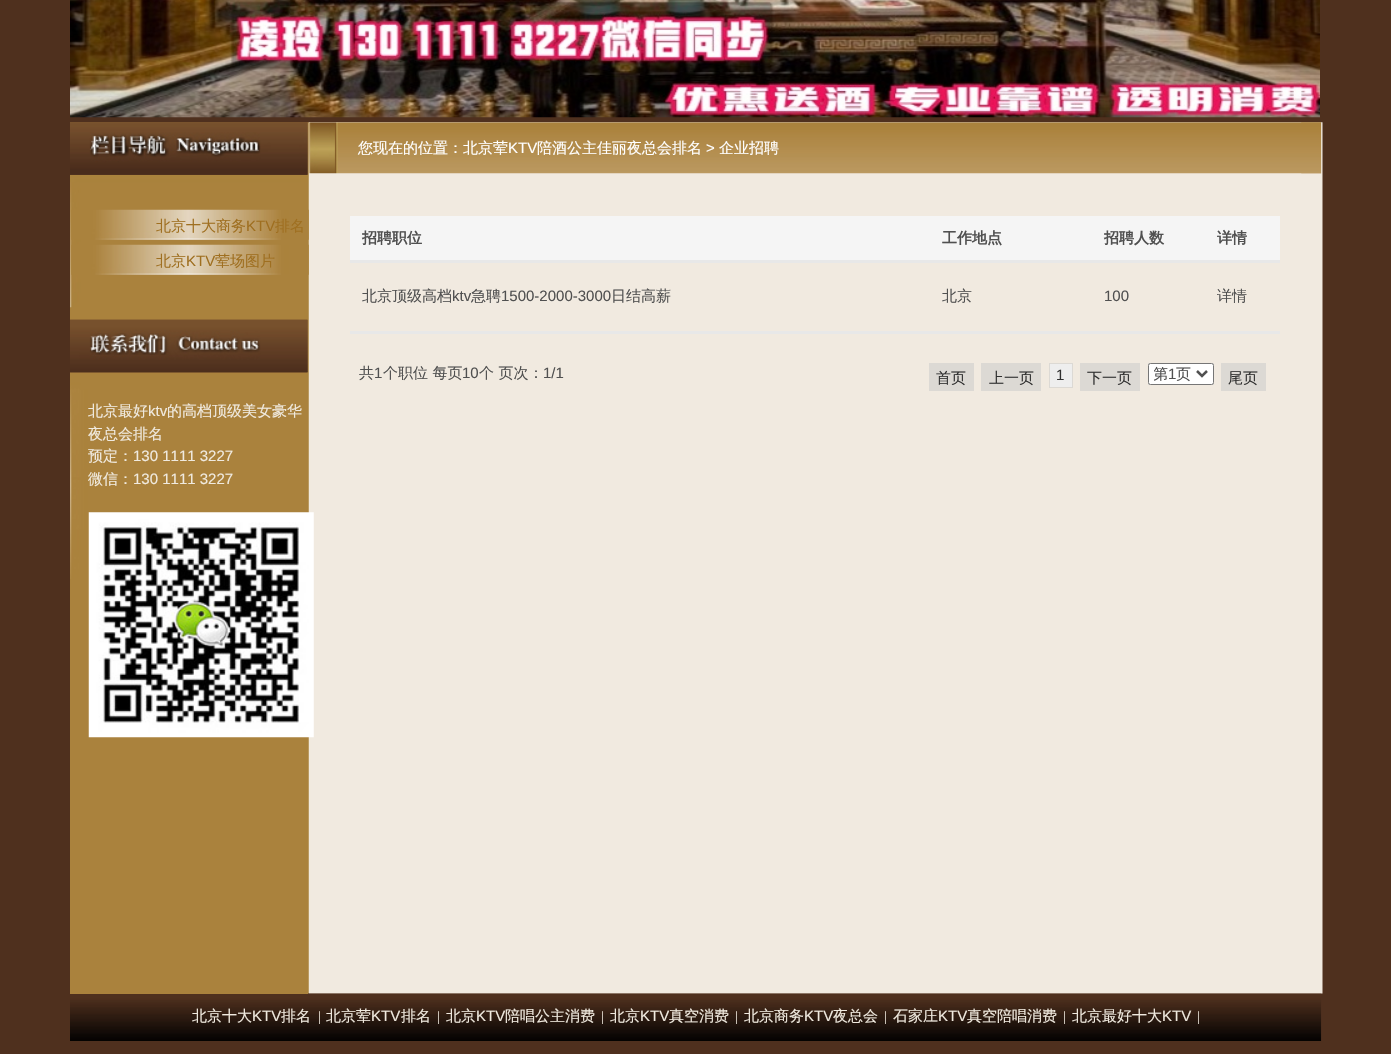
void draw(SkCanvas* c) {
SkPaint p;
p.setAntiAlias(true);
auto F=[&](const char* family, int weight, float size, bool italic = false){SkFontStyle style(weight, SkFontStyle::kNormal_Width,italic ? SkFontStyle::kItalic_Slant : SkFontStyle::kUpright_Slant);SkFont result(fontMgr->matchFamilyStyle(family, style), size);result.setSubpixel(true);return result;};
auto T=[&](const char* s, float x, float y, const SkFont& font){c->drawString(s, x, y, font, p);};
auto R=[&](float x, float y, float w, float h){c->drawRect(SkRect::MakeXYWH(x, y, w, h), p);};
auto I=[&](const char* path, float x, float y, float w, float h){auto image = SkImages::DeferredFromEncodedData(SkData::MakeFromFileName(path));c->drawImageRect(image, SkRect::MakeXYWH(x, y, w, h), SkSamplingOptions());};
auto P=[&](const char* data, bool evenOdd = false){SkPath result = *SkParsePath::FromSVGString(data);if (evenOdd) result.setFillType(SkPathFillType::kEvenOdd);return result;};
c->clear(0xff4f301e);
I("1.png",70,0,1250,118);
I("2.png",70,122,1253,872);
I("3.png",309,122,1013,52);
auto f1 = F("WenQuanYi Zen Hei",500,15);
p.setColor(0xffffffff);
T("您现在的位置：北京荤",358,153,f1);
auto f2 = F("Liberation Sans",400,15);
T("KTV",508,153,f2);
T("陪酒公主佳丽夜总会排名",537,153,f1);
T(">",706,153,f2);
T("企业招聘",719,153,f1);
I("4.png",1301,122,21,52);
I("5.png",70,122,238,186);
I("6.png",70,122,238,53);
I("7.png",71,209,238,31);
p.setColor(0xff9f6f20);
T("北京十大商务",156,231,f1);
T("KTV",246,231,f2);
T("排名",275,231,f1);
I("8.png",71,244,238,31);
T("北京",156,266,f1);
T("KTV",186,266,f2);
T("荤场图片",215,266,f1);
p.setColor(0xffe8e8e8);
R(350,331,930,3);
p.setColor(0xfff5f5f5);
R(350,216,930,44);
p.setColor(0xffe8e8e8);
R(350,260,930,3);
auto f3 = F("WenQuanYi Zen Hei",700,15);
p.setColor(0xff505050);
T("招聘职位",362,243,f3);
T("工作地点",942,243,f3);
T("招聘人数",1104,243,f3);
T("详情",1217,243,f3);
T("北京顶级高档",362,301,f1);
T("ktv",452,301,f2);
T("急聘",471,301,f1);
T("1500-2000-3000",501,301,f2);
T("日结高薪",611,301,f1);
T("北京",942,301,f1);
T("100",1104,301,f2);
T("详情",1217,301,f1);
T("共",359,378,f1);
T("1",374,378,f2);
T("个职位 每页",383,378,f1);
T("10",462,378,f2);
T("个 页次：",479,378,f1);
T("1/1",543,378,f2);
p.setColor(0xffdcd9d4);
R(929,363,45,28);
p.setColor(0xff303030);
T("首页",936,383,f1);
p.setColor(0xffdcd9d4);
R(981,363,60,28);
p.setColor(0xff303030);
T("上一页",989,383,f1);
p.setColor(0xffeeeeee);
c->drawRect(SkRect::MakeXYWH(1049.5,363.5,23,24),p);
p.setStroke(true);
p.setStrokeWidth(1);
p.setColor(0xffdcd9d4);
c->drawRect(SkRect::MakeXYWH(1049.5,363.5,23,24),p);
p.setStroke(false);
p.setColor(0xff303030);
T("1",1056,380,f2);
p.setColor(0xffdcd9d4);
R(1080,363,60,28);
p.setColor(0xff303030);
T("下一页",1087,383,f1);
p.setColor(0xffdcd9d4);
R(1148,363,66,22);
p.setColor(0xffffffff);
c->drawRoundRect(SkRect::MakeXYWH(1148.5,363.5,65,21),2,2,p);
p.setStroke(true);
p.setColor(0xff767676);
c->drawRoundRect(SkRect::MakeXYWH(1148.5,363.5,65,21),2,2,p);
p.setStrokeWidth(2.5);
p.setColor(0xff505050);
c->drawPath(P("M1197 371l5 5l5-5"),p);
c->save();
c->clipRect(SkRect::MakeXYWH(1154,364,39,20));
p.setStroke(false);
T("第",1153,379,f1);
c->restore();
T("1",1168,379,f2);
T("页",1176,379,f1);
p.setColor(0xffdcd9d4);
R(1221,363,45,28);
p.setColor(0xff303030);
T("尾页",1228,383,f1);
I("12.png",70,993,1252,48);
p.setColor(0xffab823d);
R(70,993,238,1);
I("9.png",70,319,238,260);
I("10.png",70,319,238,54);
p.setColor(0xfff0eadf);
T("北京最好",88,416,f1);
T("ktv",148,416,f2);
T("的高档顶级美女豪华",167,416,f1);
T("夜总会排名",88,439,f1);
T("预定：",88,461,f1);
T("130 1111 3227",133,461,f2);
T("微信：",88,484,f1);
T("130 1111 3227",133,484,f2);
I("11.png",88,512,226,226);
T("北京十大",192,1021,f1);
T("KTV",252,1021,f2);
T("排名",281,1021,f1);
auto f4 = F("Liberation Serif",400,14);
T("|",318,1021,f4);
T("北京荤",326,1021,f1);
T("KTV",371,1021,f2);
T("排名",401,1021,f1);
T("|",437,1021,f4);
T("北京",446,1021,f1);
T("KTV",476,1021,f2);
T("陪唱公主消费",505,1021,f1);
T("|",601,1021,f4);
T("北京",610,1021,f1);
T("KTV",640,1021,f2);
T("真空消费",669,1021,f1);
T("|",735,1021,f4);
T("北京商务",744,1021,f1);
T("KTV",804,1021,f2);
T("夜总会",833,1021,f1);
T("|",884,1021,f4);
T("石家庄",893,1021,f1);
T("KTV",938,1021,f2);
T("真空陪唱消费",967,1021,f1);
T("|",1063,1021,f4);
T("北京最好十大",1072,1021,f1);
T("KTV",1162,1021,f2);
T("|",1197,1021,f4);
}
